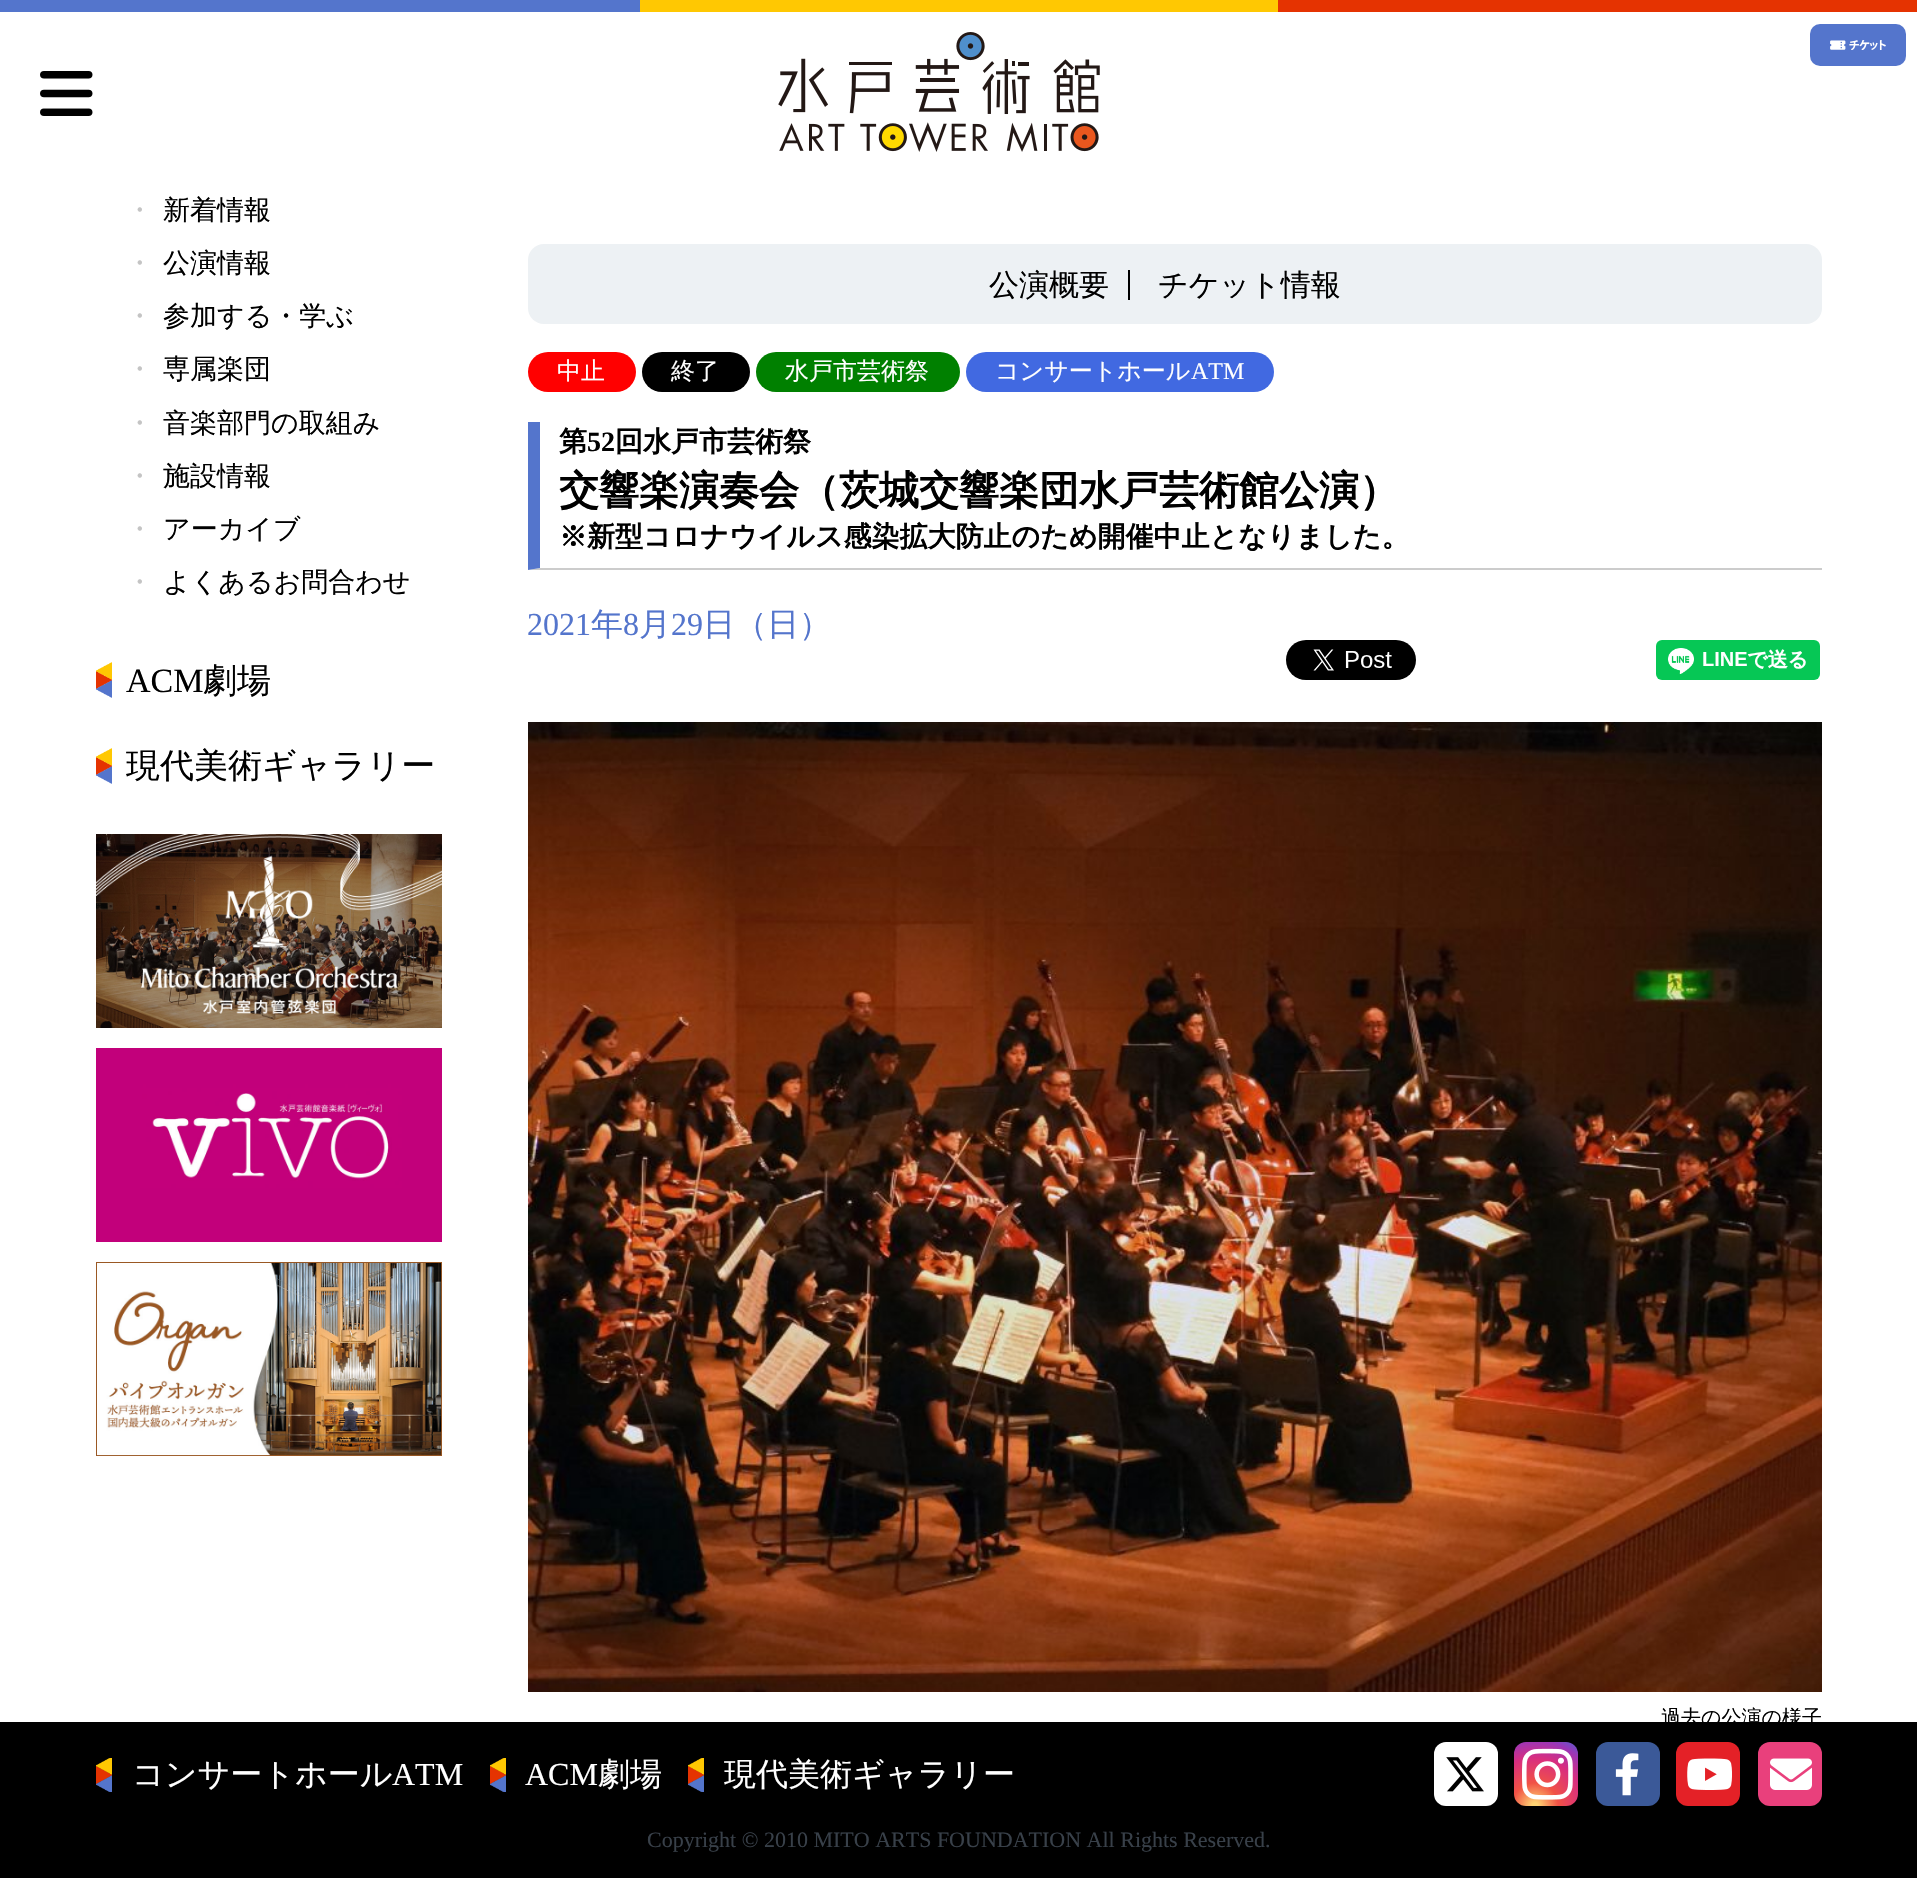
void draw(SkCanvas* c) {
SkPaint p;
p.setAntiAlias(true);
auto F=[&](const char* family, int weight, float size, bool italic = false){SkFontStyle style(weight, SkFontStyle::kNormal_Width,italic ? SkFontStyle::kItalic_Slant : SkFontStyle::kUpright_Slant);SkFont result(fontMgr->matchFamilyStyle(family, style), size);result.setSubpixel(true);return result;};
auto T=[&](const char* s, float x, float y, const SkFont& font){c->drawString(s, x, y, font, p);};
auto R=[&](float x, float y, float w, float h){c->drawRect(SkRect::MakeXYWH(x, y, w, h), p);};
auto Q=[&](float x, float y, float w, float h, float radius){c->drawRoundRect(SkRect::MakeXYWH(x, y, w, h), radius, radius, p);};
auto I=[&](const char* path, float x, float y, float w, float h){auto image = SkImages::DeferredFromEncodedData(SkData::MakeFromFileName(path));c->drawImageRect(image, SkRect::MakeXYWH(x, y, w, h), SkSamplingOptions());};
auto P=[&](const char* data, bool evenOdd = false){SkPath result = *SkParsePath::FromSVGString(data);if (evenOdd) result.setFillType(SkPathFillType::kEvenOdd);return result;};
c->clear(0xffffffff);
p.setColor(0xff5475cc);
R(0,0,640,12);
p.setColor(0xffffc802);
R(640,0,638,12);
p.setColor(0xffe53301);
R(1278,0,639,12);
I("1.png",40,71,53,45);
I("2.png",778,32,322,120);
p.setColor(0xff5475cc);
Q(1810,24,96,42,10);
I("3.png",1830,40,56,10);
auto f1 = F("WenQuanYi Zen Hei",500,27);
p.setColor(0xffc4c4c4);
T("・",126,219,f1);
p.setColor(0xff000000);
T("新着情報",163,219,f1);
p.setColor(0xffc4c4c4);
T("・",126,272,f1);
p.setColor(0xff000000);
T("公演情報",163,272,f1);
p.setColor(0xffc4c4c4);
T("・",126,325,f1);
p.setColor(0xff000000);
T("参加する・学ぶ",163,325,f1);
p.setColor(0xffc4c4c4);
T("・",126,378,f1);
p.setColor(0xff000000);
T("専属楽団",163,378,f1);
p.setColor(0xffc4c4c4);
T("・",126,432,f1);
p.setColor(0xff000000);
T("音楽部門の取組み",163,432,f1);
p.setColor(0xffc4c4c4);
T("・",126,485,f1);
p.setColor(0xff000000);
T("施設情報",163,485,f1);
p.setColor(0xffc4c4c4);
T("・",126,538,f1);
p.setColor(0xff000000);
T("アーカイブ",163,538,f1);
p.setColor(0xffc4c4c4);
T("・",126,591,f1);
p.setColor(0xff000000);
T("よくあるお問合わせ",163,591,f1);
I("4.png",96,662,16,36);
auto f2 = F("Liberation Serif",400,34);
T("ACM",126,692,f2);
auto f3 = F("WenQuanYi Zen Hei",500,34);
T("劇場",203,692,f3);
I("5.png",96,748,16,36);
T("現代美術ギャラリー",126,777,f3);
I("6.png",96,834,346,194);
I("7.png",96,1048,346,194);
I("8.png",96,1262,346,194);
p.setColor(0xffedf1f4);
Q(528,244,1294,80,16);
p.setColor(0xff000000);
R(1128,270,2,30);
auto f4 = F("WenQuanYi Zen Hei",500,30);
T("公演概要",989,295,f4);
T("チケット情報",1158,295,f4);
p.setColor(0xffff0000);
Q(528,352,108,40,20);
auto f5 = F("WenQuanYi Zen Hei",500,24);
p.setColor(0xffffffff);
T("中止",557,379,f5);
p.setColor(0xff000000);
Q(642,352,108,40,20);
p.setColor(0xffffffff);
T("終了",671,379,f5);
p.setColor(0xff008000);
Q(756,352,204,40,20);
p.setColor(0xffffffff);
T("水戸市芸術祭",785,379,f5);
p.setColor(0xff4169e1);
Q(966,352,308,40,20);
p.setColor(0xffffffff);
T("コンサートホール",995,379,f5);
auto f6 = F("Liberation Serif",400,24);
T("ATM",1191,379,f6);
p.setColor(0xffcccccc);
c->drawPath(P("M1822 570h-1294l12-2h1282z"),p);
p.setColor(0xff5475cc);
c->drawPath(P("M528 570v-148h12v146z"),p);
auto f7 = F("WenQuanYi Zen Hei",700,28);
p.setColor(0xff000000);
T("第",559,451,f7);
auto f8 = F("Liberation Serif",700,28);
T("52",587,451,f8);
T("回水戸市芸術祭",615,451,f7);
auto f9 = F("WenQuanYi Zen Hei",700,40);
T("交響楽演奏会（茨城交響楽団水戸芸術館公演）",559,504,f9);
T("※新型コロナウイルス感染拡大防止のため開催中止となりました。",559,546,f7);
auto f10 = F("Liberation Serif",400,32);
p.setColor(0xff5475cc);
T("2021",527,635,f10);
auto f11 = F("WenQuanYi Zen Hei",500,32);
T("年",591,635,f11);
T("8",623,635,f10);
T("月",639,635,f11);
T("29",671,635,f10);
T("日（日）",703,635,f11);
I("9.png",1286,640,130,40);
I("10.png",1656,640,164,40);
I("11.png",528,722,1294,970);
auto f12 = F("WenQuanYi Zen Hei",500,20);
p.setColor(0xff000000);
T("過去の公演の様子",1661,1724,f12);
R(0,1722,1917,156);
I("12.png",96,1758,16,34);
p.setColor(0xffffffff);
T("コンサートホール",132,1785,f11);
T("ATM",392,1785,f10);
I("13.png",490,1758,16,34);
T("ACM",525,1785,f10);
T("劇場",598,1785,f11);
I("13.png",688,1758,16,34);
T("現代美術ギャラリー",724,1785,f11);
Q(1434,1742,64,64,12);
I("14.png",1446,1757,38,35);
{
const SkColor colors[] = {0xfffed373,0xfff15245,0xffd92e7f,0xff9b36b7,0xff515ecf};
const float stops[] = {.04,.3,.62,.85,1};
p.setShader(SkGradientShader::MakeRadial({1535,1806}, 77, colors, stops, 5, SkTileMode::kClamp));
p.setAlpha(255);
}
Q(1514,1742,64,64,12);
I("15.png",1522,1748,51,52);
p.setShader(nullptr);
p.setColor(0xff3b5998);
Q(1596,1742,64,64,12);
I("16.png",1615,1753,24,43);
p.setColor(0xffe42127);
Q(1676,1742,64,64,12);
I("17.png",1687,1758,45,32);
p.setColor(0xffe9407c);
Q(1758,1742,64,64,12);
I("18.png",1770,1758,42,32);
auto f13 = F("Liberation Serif",400,22);
p.setColor(0xff384049);
T("Copyright © 2010 MITO ARTS FOUNDATION All Rights Reserved.",647,1847,f13);
}
